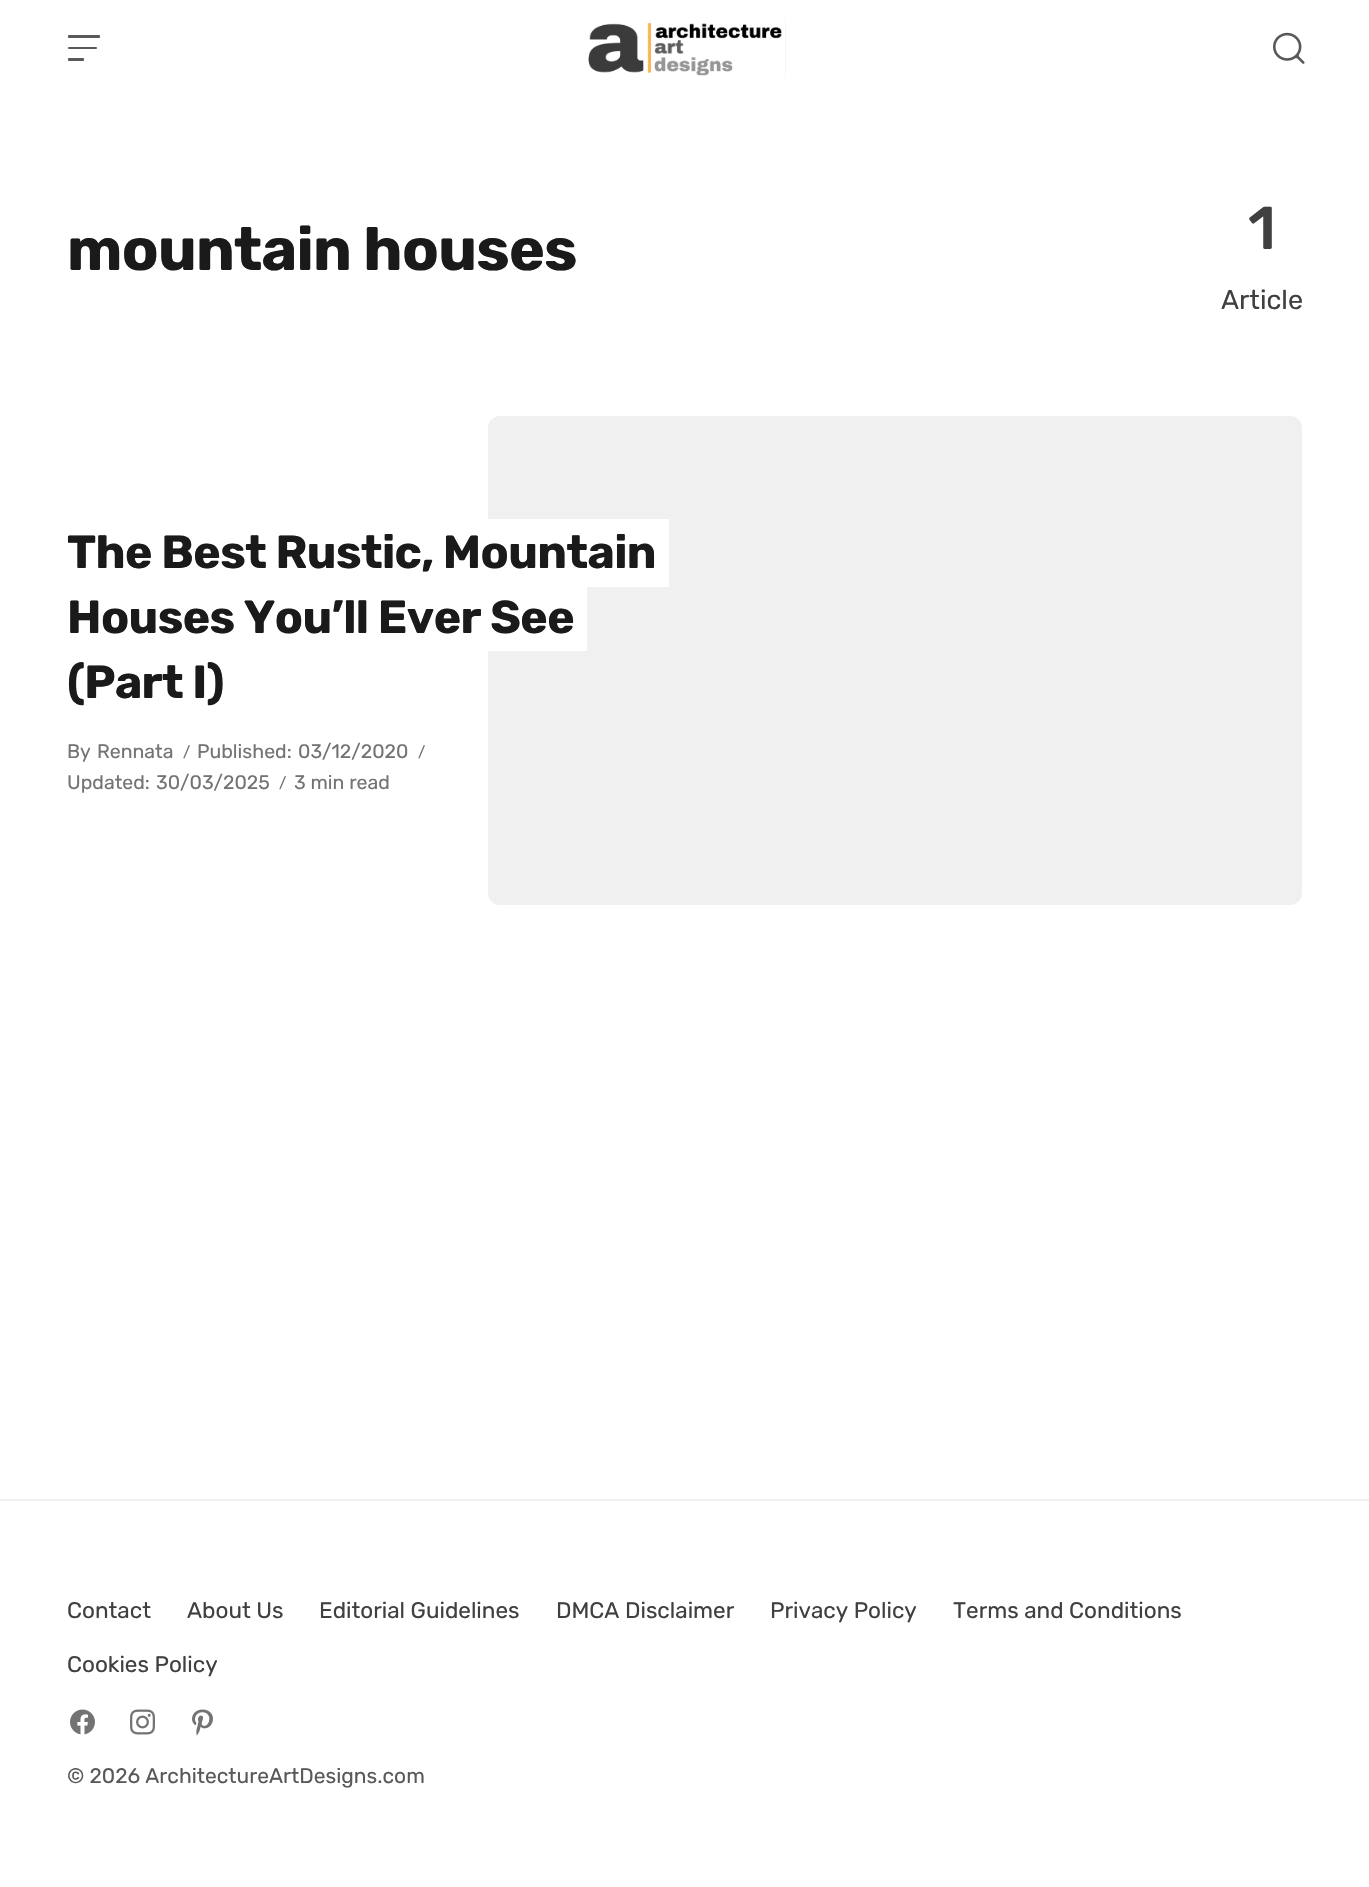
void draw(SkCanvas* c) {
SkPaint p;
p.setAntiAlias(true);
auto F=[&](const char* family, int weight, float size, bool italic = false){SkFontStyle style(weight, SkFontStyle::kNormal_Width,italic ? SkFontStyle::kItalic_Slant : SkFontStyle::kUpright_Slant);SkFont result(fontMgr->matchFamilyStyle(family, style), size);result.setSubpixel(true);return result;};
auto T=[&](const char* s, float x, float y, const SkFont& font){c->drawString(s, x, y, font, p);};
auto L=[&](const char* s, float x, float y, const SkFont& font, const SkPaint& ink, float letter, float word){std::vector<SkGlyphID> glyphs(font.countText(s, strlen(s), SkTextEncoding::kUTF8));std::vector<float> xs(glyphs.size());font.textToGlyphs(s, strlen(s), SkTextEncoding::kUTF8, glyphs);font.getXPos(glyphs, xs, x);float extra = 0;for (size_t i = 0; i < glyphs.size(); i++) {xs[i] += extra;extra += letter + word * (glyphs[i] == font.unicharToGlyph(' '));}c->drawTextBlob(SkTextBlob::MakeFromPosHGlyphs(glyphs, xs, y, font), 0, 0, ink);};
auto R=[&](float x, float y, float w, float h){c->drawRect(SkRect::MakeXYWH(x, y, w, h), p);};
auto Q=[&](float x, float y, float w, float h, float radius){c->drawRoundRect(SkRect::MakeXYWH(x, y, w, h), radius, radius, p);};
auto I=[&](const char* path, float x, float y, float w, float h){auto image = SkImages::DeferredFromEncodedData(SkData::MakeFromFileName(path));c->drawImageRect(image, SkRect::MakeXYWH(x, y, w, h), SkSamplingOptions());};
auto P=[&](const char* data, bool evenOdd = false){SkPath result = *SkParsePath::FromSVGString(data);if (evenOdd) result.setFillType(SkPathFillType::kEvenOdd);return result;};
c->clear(0xffffffff);
p.setColor(0xff595959);
Q(68,35,32,3,1);
Q(68,47,29,2,1);
Q(68,58,16,3,1);
I("1.png",588,18,198,60);
I("2.png",1273,32,32,32);
auto f1 = F("Rubik",700,60.5);
p.setColor(0xff1a1a1a);
L("mountain houses",67,270,f1,p,-.75,0);
auto f2 = F("Rubik",500,60.5);
p.setColor(0xff404040);
T("1",1248,249,f2);
auto f3 = F("Rubik",400,27);
T("Article",1221,309,f3);
p.setColor(0xfff0f0f0);
Q(488,416,814,489,12);
p.setColor(0xffffffff);
c->drawPath(P("M80 519v6h577v50h12v-56z"),p);
c->drawPath(P("M80 580v7h589v-56h-12v49z"),p);
R(488,525,169,55);
auto f4 = F("Rubik",700,46.3);
p.setColor(0xff1a1a1a);
L("The Best Rustic, Mountain",67,568,f4,p,-.6,0);
p.setColor(0xffffffff);
c->drawPath(P("M80 584v6h494v49h13v-55z"),p);
c->drawPath(P("M80 645v6h507v-55h-13v49z"),p);
R(488,590,86,55);
p.setColor(0xff1a1a1a);
L("Houses You’ll Ever See",67,633,f4,p,-.6,0);
L("(Part I)",67,698,f4,p,-.6,0);
auto f5 = F("Rubik",400,19.5);
p.setColor(0xff737373);
T("By",67,758,f5);
T("Rennata",97,758,f5);
auto f6 = F("Rubik",400,15);
T("/",183,757,f6);
T("Published:",197,758,f5);
T("03/12/2020",298,758,f5);
T("/",418,757,f6);
T("Updated:",67,789,f5);
T("30/03/2025",156,789,f5);
T("/",279,788,f6);
T("3 min read",294,789,f5);
p.setColor(0xfff0f0f0);
R(0,1499,1369,2);
auto f7 = F("Rubik",400,22.5);
p.setColor(0xff404040);
T("Contact",67,1618,f7);
T("About Us",187,1618,f7);
T("Editorial Guidelines",319,1618,f7);
T("DMCA Disclaimer",556,1618,f7);
T("Privacy Policy",770,1618,f7);
T("Terms and Conditions",953,1618,f7);
T("Cookies Policy",67,1672,f7);
I("3.png",70,1709,25,26);
I("4.png",130,1709,25,26);
I("5.png",192,1709,21,27);
auto f8 = F("Rubik",400,21);
p.setColor(0xff595959);
T("© 2026 ArchitectureArtDesigns.com",67,1783,f8);
}
